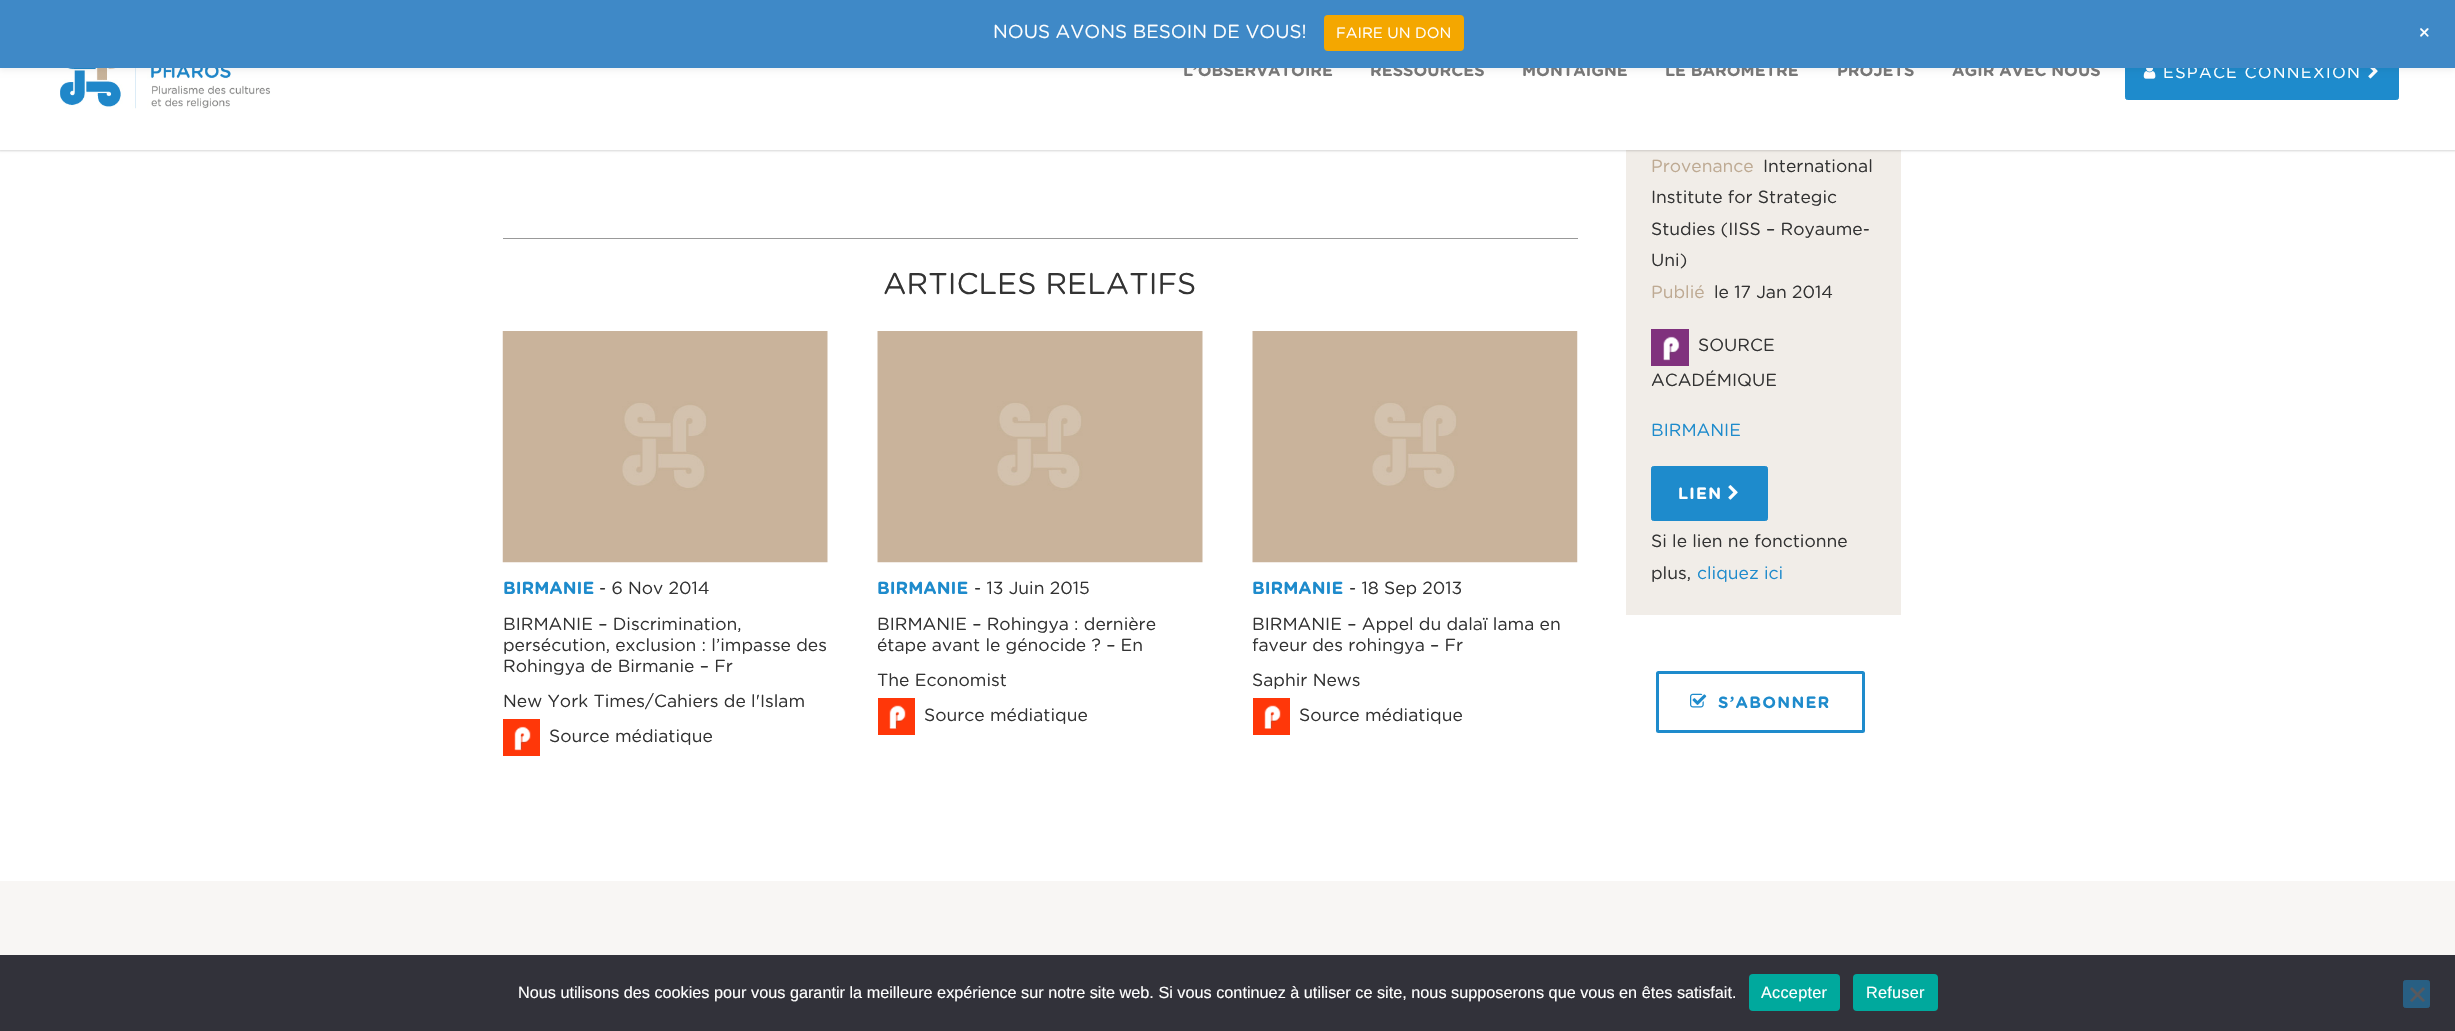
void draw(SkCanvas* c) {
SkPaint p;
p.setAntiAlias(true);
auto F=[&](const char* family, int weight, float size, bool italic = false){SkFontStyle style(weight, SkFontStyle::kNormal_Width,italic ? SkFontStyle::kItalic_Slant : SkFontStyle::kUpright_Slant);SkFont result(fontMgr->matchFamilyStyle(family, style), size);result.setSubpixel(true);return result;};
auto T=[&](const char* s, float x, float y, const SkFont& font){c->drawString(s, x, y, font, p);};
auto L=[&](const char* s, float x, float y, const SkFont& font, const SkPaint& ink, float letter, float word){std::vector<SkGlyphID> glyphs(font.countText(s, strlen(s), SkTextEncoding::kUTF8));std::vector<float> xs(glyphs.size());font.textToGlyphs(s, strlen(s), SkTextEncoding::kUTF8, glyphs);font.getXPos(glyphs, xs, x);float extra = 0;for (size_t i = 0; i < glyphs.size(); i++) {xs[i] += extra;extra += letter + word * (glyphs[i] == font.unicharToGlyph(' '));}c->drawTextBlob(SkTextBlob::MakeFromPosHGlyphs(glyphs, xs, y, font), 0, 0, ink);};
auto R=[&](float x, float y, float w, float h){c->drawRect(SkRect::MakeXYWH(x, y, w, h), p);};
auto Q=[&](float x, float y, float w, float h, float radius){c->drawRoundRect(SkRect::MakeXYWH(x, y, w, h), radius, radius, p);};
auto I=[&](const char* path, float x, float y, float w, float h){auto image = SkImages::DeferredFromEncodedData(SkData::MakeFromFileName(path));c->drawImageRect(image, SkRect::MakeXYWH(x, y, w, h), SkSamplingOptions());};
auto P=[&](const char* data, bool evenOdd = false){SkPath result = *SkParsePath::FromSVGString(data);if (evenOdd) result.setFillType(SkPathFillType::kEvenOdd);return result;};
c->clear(0xffffffff);
p.setColor(0xfff1ede8);
R(1626,150,275,465);
p.setColor(0x29000000);
p.setMaskFilter(SkMaskFilter::MakeBlur(kNormal_SkBlurStyle, 1));
c->drawRect(SkRect::MakeXYWH(-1,-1,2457,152),p);
p.setMaskFilter(nullptr);
p.setColor(0xffffffff);
R(0,68,2455,82);
I("1.png",60,68,238,41);
p.setColor(0xff1e8bcc);
c->drawRoundRect(SkRect::MakeXYWH(2125.5,45.5,273,54),2,2,p);
p.setStroke(true);
p.setStrokeWidth(1);
c->drawRoundRect(SkRect::MakeXYWH(2125.5,45.5,273,54),2,2,p);
I("2.png",2143,68,13,11);
I("3.png",2368,68,10,11);
p.setStroke(false);
p.setColor(0x0d000000);
p.setMaskFilter(SkMaskFilter::MakeBlur(kNormal_SkBlurStyle, 2.5));
c->drawRect(SkRect::MakeXYWH(0,4,2455,67),p);
p.setMaskFilter(nullptr);
auto f1 = F("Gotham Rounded",700,16.25);
p.setColor(0xff777777);
T("L’OBSERVATOIRE",1183,76,f1);
T("RESSOURCES",1370,76,f1);
T("MONTAIGNE",1522,76,f1);
T("LE BAROMÈTRE",1665,76,f1);
T("PROJETS",1837,76,f1);
T("AGIR AVEC NOUS",1952,76,f1);
auto f2 = F("Gotham Rounded",400,16.25);
p.setColor(0xffffffff);
L("ESPACE CONNEXION",2163,78,f2,p,1.25,0);
p.setColor(0xff3f89c7);
R(0,0,2455,68);
auto f3 = F("Gotham Rounded",400,18.75);
p.setColor(0xffffffff);
T("NOUS AVONS BESOIN DE VOUS!",993,38,f3);
p.setColor(0xfff4a700);
Q(1324,15,140,36,4);
auto f4 = F("Gotham Rounded",400,15);
p.setColor(0xffffffff);
T("FAIRE UN DON",1336,38,f4);
auto f5 = F("Gotham Rounded",400,22);
c->save();
c->rotate(45,2414,33);
T("+",2414,33,f5);
c->restore();
p.setColor(0xff999999);
R(503,238,1075,1);
auto f6 = F("Gotham Rounded",400,30);
p.setColor(0xff333333);
T("ARTICLES RELATIFS",883,294,f6);
I("4.png",502,331,326,232);
auto f7 = F("Gotham Rounded",700,17.5);
p.setColor(0xff1e8bcc);
T("BIRMANIE",503,594,f7);
auto f8 = F("Gotham Rounded",400,17.5);
p.setColor(0xff333333);
T("- 6 Nov 2014",599,594,f8);
T("BIRMANIE – Discrimination,",503,630,f8);
T("persécution, exclusion : l’impasse des",503,651,f8);
T("Rohingya de Birmanie – Fr",503,672,f8);
T("New York Times/Cahiers de l'Islam",503,707,f8);
p.setColor(0xffff3709);
R(503,719,37,37);
I("5.png",514,726,17,25);
p.setColor(0xff333333);
T("Source médiatique",549,742,f8);
I("6.png",877,331,326,232);
p.setColor(0xff1e8bcc);
T("BIRMANIE",877,594,f7);
p.setColor(0xff333333);
T("- 13 Juin 2015",974,594,f8);
T("BIRMANIE – Rohingya : dernière",877,630,f8);
T("étape avant le génocide ? – En",877,651,f8);
T("The Economist",877,686,f8);
p.setColor(0xffff3709);
R(878,698,37,37);
I("7.png",889,705,17,24);
p.setColor(0xff333333);
T("Source médiatique",924,721,f8);
I("8.png",1252,331,326,232);
p.setColor(0xff1e8bcc);
T("BIRMANIE",1252,594,f7);
p.setColor(0xff333333);
T("- 18 Sep 2013",1349,594,f8);
T("BIRMANIE – Appel du dalaï lama en",1252,630,f8);
T("faveur des rohingya – Fr",1252,651,f8);
T("Saphir News",1252,686,f8);
p.setColor(0xffff3709);
R(1253,698,37,37);
I("9.png",1264,705,17,24);
p.setColor(0xff333333);
T("Source médiatique",1299,721,f8);
p.setColor(0xffbeaa93);
T("Provenance",1651,172,f8);
p.setColor(0xff333333);
T("International",1763,172,f8);
T("Institute for Strategic",1651,203,f8);
T("Studies (IISS – Royaume-",1651,235,f8);
T("Uni)",1651,266,f8);
p.setColor(0xffbeaa93);
T("Publié",1651,298,f8);
p.setColor(0xff333333);
T("le 17 Jan 2014",1714,298,f8);
p.setColor(0xff80317d);
R(1651,329,38,37);
I("10.png",1663,336,17,25);
p.setColor(0xff333333);
T("SOURCE",1698,351,f8);
T("ACADÉMIQUE",1651,386,f8);
p.setColor(0xff1e8bcc);
T("BIRMANIE",1651,436,f8);
c->drawRoundRect(SkRect::MakeXYWH(1651.5,466.5,116,54),2,2,p);
p.setStroke(true);
c->drawRoundRect(SkRect::MakeXYWH(1651.5,466.5,116,54),2,2,p);
p.setStroke(false);
p.setColor(0xffffffff);
L("LIEN",1678,499,f1,p,1.25,0);
I("11.png",1728,485,10,15);
p.setColor(0xff333333);
T("Si le lien ne fonctionne",1651,547,f8);
T("plus,",1651,579,f8);
p.setColor(0xff1e8bcc);
T("cliquez ici",1697,579,f8);
p.setStroke(true);
p.setStrokeWidth(3);
c->drawRoundRect(SkRect::MakeXYWH(1657.5,672.5,206,59),1,1,p);
I("12.png",1690,693,17,15);
p.setStroke(false);
L("S’ABONNER",1718,708,f1,p,1.25,0);
p.setColor(0xfff8f6f4);
R(0,881,2455,74);
p.setColor(0xff32323a);
R(0,955,2455,76);
auto f9 = F("Liberation Sans",400,16.25);
p.setColor(0xffffffff);
T("Nous utilisons des cookies pour vous garantir la meilleure expérience sur notre site web. Si vous continuez à utiliser ce site, nous supposerons que vous en êtes satisfait.",518,998,f9);
p.setColor(0xff00a99d);
Q(1749,974,91,37,4);
p.setColor(0xffffffff);
L("Accepter",1761,998,f9,p,.25,0);
p.setColor(0xff00a99d);
Q(1853,974,85,37,4);
p.setColor(0xffffffff);
L("Refuser",1866,998,f9,p,.25,0);
p.setColor(0xff285f83);
c->drawRoundRect(SkRect::MakeXYWH(2403.5,980.5,26,27),2,2,p);
p.setStroke(true);
p.setStrokeWidth(1);
c->drawRoundRect(SkRect::MakeXYWH(2403.5,980.5,26,27),2,2,p);
p.setStroke(false);
p.setColor(0xff59595d);
c->drawPath(P("M2423 987l2 2l-13 13l-2-1.5z"),p);
c->drawPath(P("M2410 989l2-2l13 13.5l-2 1.5z"),p);
}
